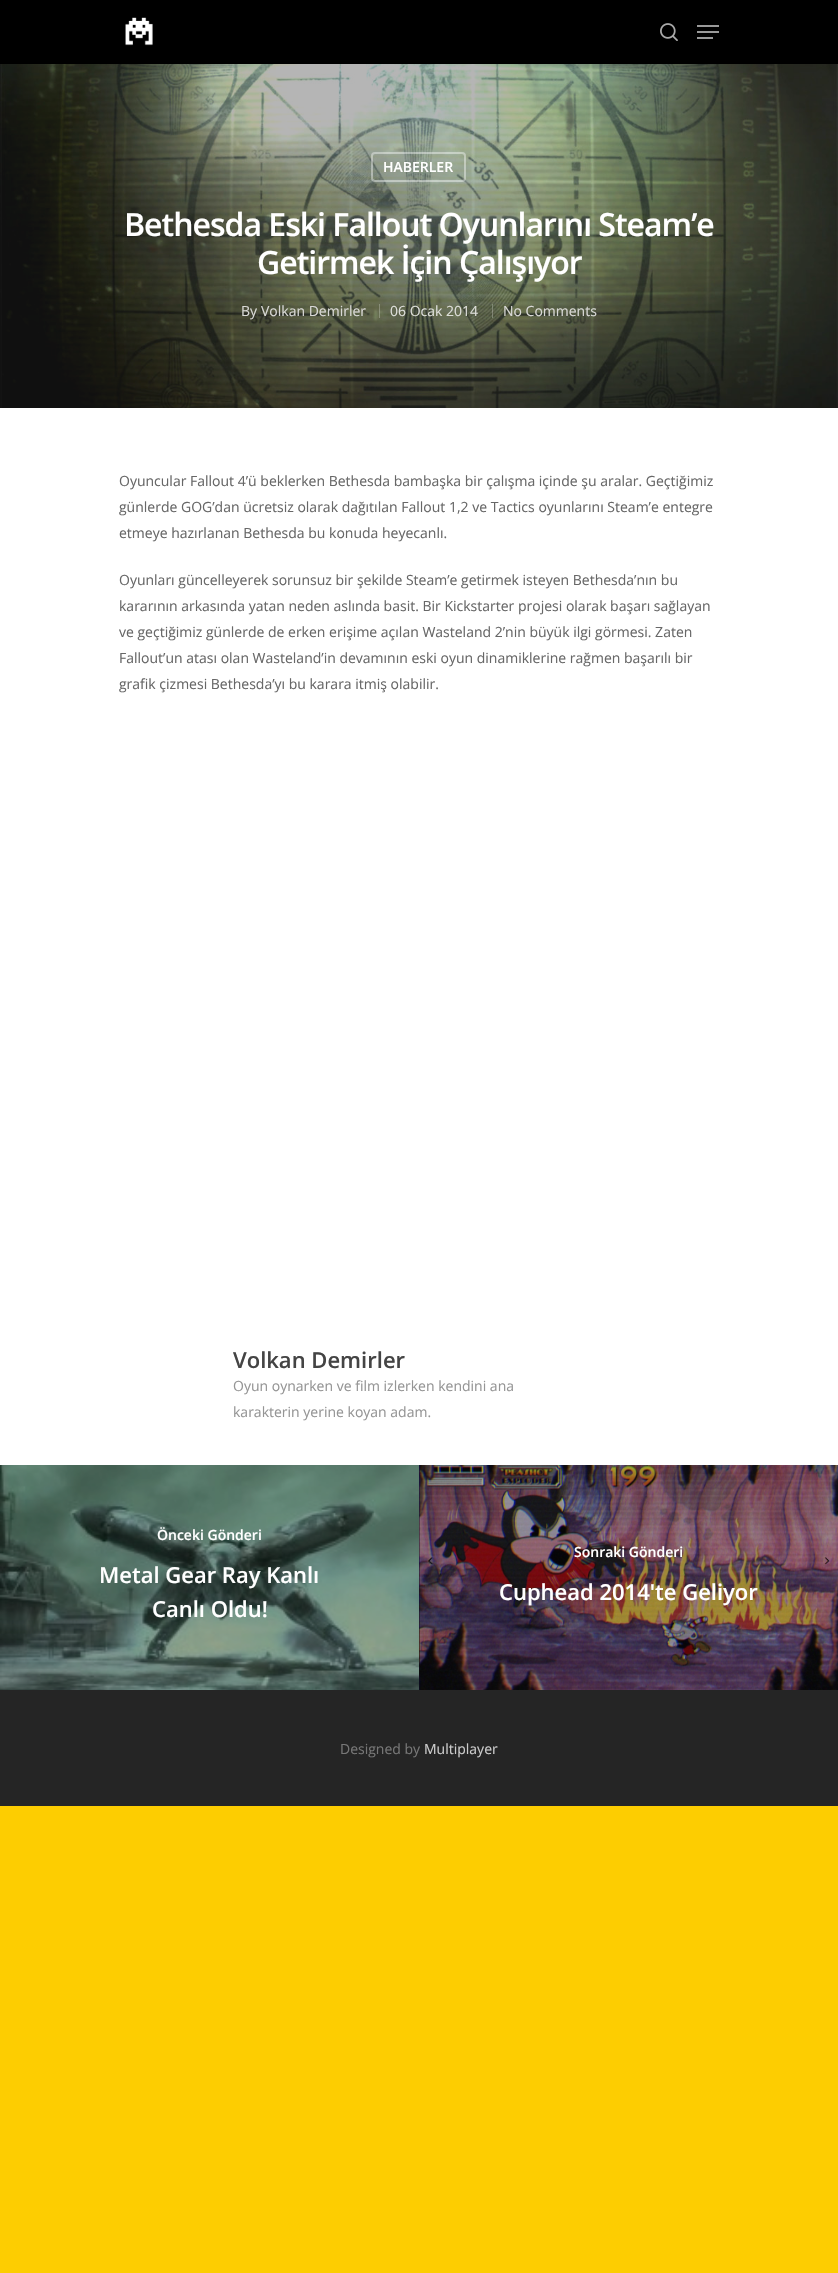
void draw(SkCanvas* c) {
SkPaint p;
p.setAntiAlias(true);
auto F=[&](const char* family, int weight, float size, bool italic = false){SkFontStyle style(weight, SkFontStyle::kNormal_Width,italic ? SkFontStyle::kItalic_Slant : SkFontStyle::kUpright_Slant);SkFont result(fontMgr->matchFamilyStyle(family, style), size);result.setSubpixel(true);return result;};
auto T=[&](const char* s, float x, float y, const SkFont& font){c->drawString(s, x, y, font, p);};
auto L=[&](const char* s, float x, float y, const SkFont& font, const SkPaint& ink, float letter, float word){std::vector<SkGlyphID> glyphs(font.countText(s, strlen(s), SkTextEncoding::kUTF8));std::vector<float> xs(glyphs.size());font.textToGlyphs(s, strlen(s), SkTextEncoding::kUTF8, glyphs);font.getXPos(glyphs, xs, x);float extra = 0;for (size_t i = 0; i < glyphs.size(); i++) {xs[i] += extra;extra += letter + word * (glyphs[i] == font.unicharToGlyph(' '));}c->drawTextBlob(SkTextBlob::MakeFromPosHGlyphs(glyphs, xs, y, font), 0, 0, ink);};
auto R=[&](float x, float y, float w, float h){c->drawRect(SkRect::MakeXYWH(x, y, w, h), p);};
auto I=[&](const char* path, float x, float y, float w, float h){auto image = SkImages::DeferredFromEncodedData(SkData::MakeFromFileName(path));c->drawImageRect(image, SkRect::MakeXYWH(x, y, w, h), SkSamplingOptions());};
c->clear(0xfffdcd01);
p.setColor(0xffffffff);
R(0,408,838,1057);
p.setColor(0xff000000);
R(0,0,838,64);
I("1.png",125,17,28,29);
I("2.png",660,23,18,18);
p.setColor(0xff999999);
R(697,25,22,2);
R(697,37,16,2);
R(697,31,22,2);
I("3.png",0,64,838,344);
p.setStroke(true);
p.setStrokeWidth(2);
p.setColor(0x66ffffff);
c->drawRoundRect(SkRect::MakeXYWH(372,153,93,28),3,3,p);
auto f1 = F("Open Sans",600,14);
p.setStroke(false);
p.setColor(0xffffffff);
T("HABERLER",383,172,f1);
auto f2 = F("Open Sans",600,32);
L("Bethesda Eski Fallout Oyunlarını Steam’e",124,236,f2,p,-1,0);
L("Getirmek İçin Çalışıyor",257,274,f2,p,-1,0);
auto f3 = F("Open Sans",400,14);
p.setColor(0xffd9d9d6);
T("By",241,316,f3);
T("Volkan Demirler",261,316,f3);
p.setColor(0x40ffffff);
R(379,304,1,14);
p.setColor(0xffdedfdb);
T("06 Ocak 2014",390,316,f3);
p.setColor(0x40ffffff);
R(492,304,1,14);
p.setColor(0xffd9d9d6);
T("No Comments",503,316,f3);
p.setColor(0xff676767);
T("Oyuncular Fallout 4’ü beklerken Bethesda bambaşka bir çalışma içinde şu aralar. Geçtiğimiz",119,486,f3);
T("günlerde GOG’dan ücretsiz olarak dağıtılan Fallout 1,2 ve Tactics oyunlarını Steam’e entegre",119,512,f3);
T("etmeye hazırlanan Bethesda bu konuda heyecanlı.",119,538,f3);
T("Oyunları güncelleyerek sorunsuz bir şekilde Steam’e getirmek isteyen Bethesda’nın bu",119,585,f3);
T("kararının arkasında yatan neden aslında basit. Bir Kickstarter projesi olarak başarı sağlayan",119,611,f3);
T("ve geçtiğimiz günlerde de erken erişime açılan Wasteland 2’nin büyük ilgi görmesi. Zaten",119,637,f3);
T("Fallout’un atası olan Wasteland’in devamının eski oyun dinamiklerine rağmen başarılı bir",119,663,f3);
T("grafik çizmesi Bethesda’yı bu karara itmiş olabilir.",119,689,f3);
auto f4 = F("Open Sans",600,22);
p.setColor(0xff444444);
T("Volkan Demirler",233,1368,f4);
p.setColor(0xff959595);
T("Oyun oynarken ve film izlerken kendini ana",233,1391,f3);
T("karakterin yerine koyan adam.",233,1417,f3);
I("4.png",0,1465,419,225);
p.setColor(0xffffffff);
T("Önceki Gönderi",157,1540,f1);
T("Metal Gear Ray Kanlı",99,1583,f4);
T("Canlı Oldu!",152,1617,f4);
I("5.png",419,1465,419,225);
T("Sonraki Gönderi",574,1557,f1);
T("Cuphead 2014'te Geliyor",499,1600,f4);
p.setColor(0xff252525);
R(0,1690,838,116);
p.setColor(0xff777777);
T("Designed by",340,1754,f3);
p.setColor(0xffcccccc);
T("Multiplayer",424,1754,f3);
}
